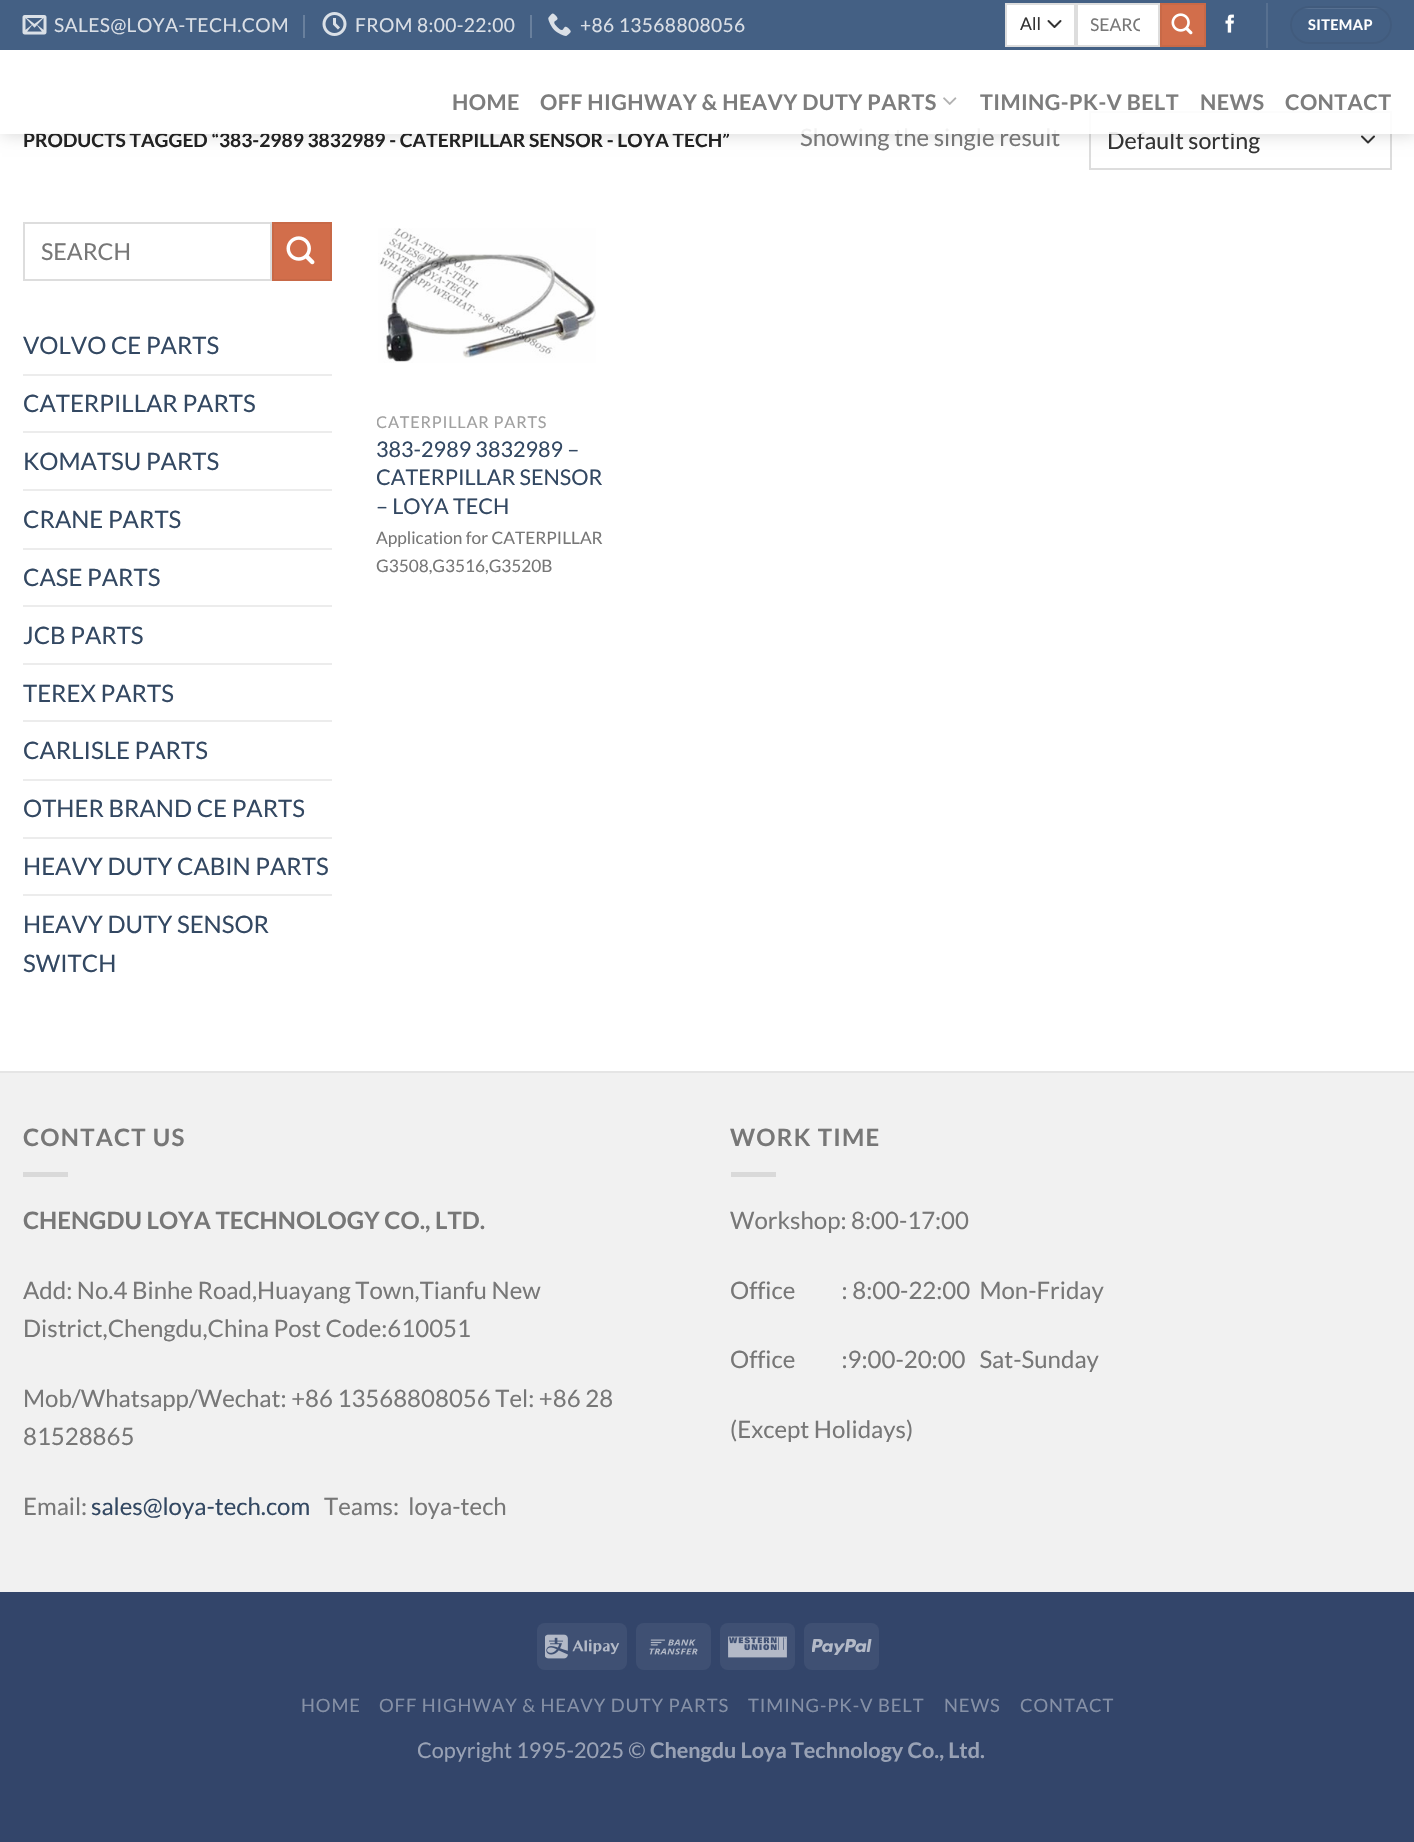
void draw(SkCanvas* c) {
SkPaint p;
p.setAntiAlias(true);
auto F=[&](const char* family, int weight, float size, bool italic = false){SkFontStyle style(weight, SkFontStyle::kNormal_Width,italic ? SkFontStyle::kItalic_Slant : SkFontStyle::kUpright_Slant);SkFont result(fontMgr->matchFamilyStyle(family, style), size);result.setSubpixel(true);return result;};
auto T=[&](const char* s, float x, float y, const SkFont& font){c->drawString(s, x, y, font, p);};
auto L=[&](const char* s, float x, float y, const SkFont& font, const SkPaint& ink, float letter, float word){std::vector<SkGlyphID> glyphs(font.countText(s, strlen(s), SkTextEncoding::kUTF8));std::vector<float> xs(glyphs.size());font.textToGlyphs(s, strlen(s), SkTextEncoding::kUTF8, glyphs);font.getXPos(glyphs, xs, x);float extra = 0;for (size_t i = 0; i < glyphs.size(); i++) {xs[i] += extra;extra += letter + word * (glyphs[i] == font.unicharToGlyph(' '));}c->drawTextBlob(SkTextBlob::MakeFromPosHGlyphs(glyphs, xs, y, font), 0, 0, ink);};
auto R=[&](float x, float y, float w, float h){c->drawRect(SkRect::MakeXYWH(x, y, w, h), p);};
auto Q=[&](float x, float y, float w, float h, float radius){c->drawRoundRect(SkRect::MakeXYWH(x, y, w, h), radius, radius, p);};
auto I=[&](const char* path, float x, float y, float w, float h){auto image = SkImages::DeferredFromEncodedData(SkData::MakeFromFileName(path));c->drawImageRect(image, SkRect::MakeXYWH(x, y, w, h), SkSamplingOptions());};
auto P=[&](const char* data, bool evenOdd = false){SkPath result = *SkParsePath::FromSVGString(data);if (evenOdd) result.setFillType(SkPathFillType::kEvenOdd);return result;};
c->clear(0xffffffff);
p.setStroke(true);
p.setStrokeWidth(2);
p.setStrokeCap(SkPaint::kRound_Cap);
p.setStrokeJoin(SkPaint::kRound_Join);
p.setColor(0xff333333);
c->drawPath(P("M1362 136.5l6 6l6-6"),p);
p.setStrokeCap(SkPaint::kButt_Cap);
p.setStrokeJoin(SkPaint::kMiter_Join);
p.setColor(0xffdddddd);
c->drawRect(SkRect::MakeXYWH(1090,112,301,57),p);
c->save();
c->clipPath(P("M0 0h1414v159h-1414zm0 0h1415v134h-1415z",true),true);
p.setStroke(false);
p.setColor(0x26000000);
p.setMaskFilter(SkMaskFilter::MakeBlur(kNormal_SkBlurStyle, 7.5));
c->drawRect(SkRect::MakeXYWH(2,2,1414,133),p);
p.setMaskFilter(nullptr);
c->restore();
p.setColor(0xff446084);
R(0,0,1414,50);
I("1.png",22,15,25,20);
auto f1 = F("Lato",400,19.2);
p.setColor(0xffdadfe6);
L("SALES@LOYA-TECH.COM",54,32,f1,p,.4,0);
p.setColor(0xff69809d);
R(303,15,2,23);
I("2.png",322,12,25,24);
p.setColor(0xffdadfe6);
L("FROM 8:00-22:00",355,32,f1,p,.4,0);
p.setColor(0xff69809d);
R(530,15,2,23);
I("3.png",548,13,23,23);
p.setColor(0xffdadfe6);
L("+86 13568808056",580,32,f1,p,.4,0);
p.setColor(0xffffffff);
R(1007,5,67,40);
p.setStroke(true);
p.setStrokeCap(SkPaint::kRound_Cap);
p.setStrokeJoin(SkPaint::kRound_Join);
p.setColor(0xff333333);
c->drawPath(P("M1048.5 21l6 6l6-6"),p);
p.setStrokeCap(SkPaint::kButt_Cap);
p.setStrokeJoin(SkPaint::kMiter_Join);
p.setColor(0xffdddddd);
c->drawRect(SkRect::MakeXYWH(1006,4,69,42),p);
auto f2 = F("Lato",400,17.5);
p.setStroke(false);
p.setColor(0xff333333);
T("All",1020,30,f2);
p.setColor(0xffffffff);
c->drawRect(SkRect::MakeXYWH(1077,4,82,42),p);
p.setStroke(true);
p.setColor(0xffdddddd);
c->drawRect(SkRect::MakeXYWH(1077,4,82,42),p);
c->save();
c->clipRect(SkRect::MakeXYWH(1091,15,49,20));
p.setStroke(false);
p.setColor(0xff777777);
T("SEARC",1090,31,f2);
c->restore();
p.setColor(0xffd26e4b);
c->drawRect(SkRect::MakeXYWH(1161,4,44,42),p);
p.setStroke(true);
p.setColor(0xffc86947);
c->drawRect(SkRect::MakeXYWH(1161,4,44,42),p);
I("4.png",1171,13,22,22);
I("5.png",1225,14,9,19);
p.setStroke(false);
p.setColor(0xff577090);
R(1266,3,2,45);
p.setStroke(true);
p.setColor(0xff415b7d);
c->drawRoundRect(SkRect::MakeXYWH(1291,7,100,36),18,18,p);
p.setStroke(false);
p.setColor(0x1affffff);
c->drawPath(P("M1309 8l-6 1h77l-6-1z"),p);
auto f3 = F("Lato",700,14.5);
p.setColor(0xffffffff);
L("SITEMAP",1308,30,f3,p,.4,0);
auto f4 = F("Lato",700,21.6);
p.setColor(0xff7d7d7d);
L("HOME",452,110,f4,p,.4,0);
L("OFF HIGHWAY & HEAVY DUTY PARTS",540,110,f4,p,.4,0);
I("6.png",943,97,14,8);
L("TIMING-PK-V BELT",980,110,f4,p,.4,0);
L("NEWS",1200,110,f4,p,.4,0);
L("CONTACT",1285,110,f4,p,.4,0);
auto f5 = F("Lato",700,19.2);
p.setColor(0xff222222);
T("PRODUCTS TAGGED “383-2989 3832989 - CATERPILLAR SENSOR - LOYA TECH”",23,147,f5);
auto f6 = F("Lato",400,24);
p.setColor(0xff777777);
T("Showing the single result",800,146,f6);
auto f7 = F("Lato",400,23.25);
p.setColor(0xff333333);
T("Default sorting",1107,149,f7);
p.setColor(0xe6ffffff);
R(0,111,1414,23);
p.setStroke(true);
p.setColor(0xffdddddd);
c->drawRect(SkRect::MakeXYWH(24,223,247,57),p);
p.setStroke(false);
p.setColor(0xff777777);
T("SEARCH",41,260,f7);
p.setColor(0xffd26e4b);
c->drawRect(SkRect::MakeXYWH(273,223,58,57),p);
p.setStroke(true);
p.setColor(0xffc86947);
c->drawRect(SkRect::MakeXYWH(273,223,58,57),p);
I("7.png",286,236,29,29);
p.setStroke(false);
p.setColor(0xff334862);
T("VOLVO CE PARTS",23,354,f6);
p.setColor(0xffececec);
R(23,374,309,2);
p.setColor(0xff334862);
T("CATERPILLAR PARTS",23,412,f6);
p.setColor(0xffececec);
R(23,431,309,2);
p.setColor(0xff334862);
T("KOMATSU PARTS",23,470,f6);
p.setColor(0xffececec);
R(23,489,309,2);
p.setColor(0xff334862);
T("CRANE PARTS",23,528,f6);
p.setColor(0xffececec);
R(23,548,309,2);
p.setColor(0xff334862);
T("CASE PARTS",23,586,f6);
p.setColor(0xffececec);
R(23,605,309,2);
p.setColor(0xff334862);
T("JCB PARTS",23,644,f6);
p.setColor(0xffececec);
R(23,663,309,2);
p.setColor(0xff334862);
T("TEREX PARTS",23,702,f6);
p.setColor(0xffececec);
R(23,720,309,2);
p.setColor(0xff334862);
T("CARLISLE PARTS",23,759,f6);
p.setColor(0xffececec);
R(23,779,309,2);
p.setColor(0xff334862);
T("OTHER BRAND CE PARTS",23,817,f6);
p.setColor(0xffececec);
R(23,837,309,2);
p.setColor(0xff334862);
T("HEAVY DUTY CABIN PARTS",23,875,f6);
p.setColor(0xffececec);
R(23,894,309,2);
p.setColor(0xff334862);
T("HEAVY DUTY SENSOR",23,933,f6);
T("SWITCH",23,972,f6);
I("8.png",378,228,218,135);
c->save();
c->clipRect(SkRect::MakeXYWH(377,413,231,19));
auto f8 = F("Lato",400,16.25);
p.setColor(0xffa0a0a0);
L("CATERPILLAR PARTS",376,428,f8,p,.8,0);
c->restore();
auto f9 = F("Lato",400,21.6);
p.setColor(0xff334862);
T("383-2989 3832989 –",376,457,f9);
T("CATERPILLAR SENSOR",376,485,f9);
T("– LOYA TECH",376,514,f9);
auto f10 = F("Lato",400,17.25);
p.setColor(0xff777777);
T("Application for CATERPILLAR",376,544,f10);
T("G3508,G3516,G3520B",376,572,f10);
p.setColor(0xfff1f1f1);
R(0,1073,1414,519);
p.setColor(0xffe5e5e5);
R(0,1071,1414,2);
auto f11 = F("Lato",700,24);
p.setColor(0xff777777);
L("CONTACT US",23,1146,f11,p,1.25,0);
p.setColor(0xffd9d9d9);
R(23,1172,45,5);
p.setColor(0xff777777);
T("CHENGDU LOYA TECHNOLOGY CO., LTD.",23,1229,f11);
T("Add: No.4 Binhe Road,Huayang Town,Tianfu New",23,1299,f6);
T("District,Chengdu,China Post Code:610051",23,1337,f6);
T("Mob/Whatsapp/Wechat: +86 13568808056 Tel: +86 28",23,1407,f6);
T("81528865",23,1445,f6);
T("Email:",23,1515,f6);
p.setColor(0xff334862);
T("sales@loya-tech.com",91,1515,f6);
p.setColor(0xff777777);
T("Teams:  loya-tech",324,1515,f6);
L("WORK TIME",730,1146,f11,p,1.25,0);
p.setColor(0xffd9d9d9);
R(731,1172,45,5);
p.setColor(0xff777777);
T("Workshop: 8:00-17:00",730,1229,f6);
T("Office          : 8:00-22:00  Mon-Friday",730,1299,f6);
T("Office          :9:00-20:00   Sat-Sunday",730,1368,f6);
T("(Except Holidays)",730,1438,f6);
p.setColor(0xff33456a);
R(0,1592,1414,250);
p.setColor(0xff3f5073);
Q(537,1623,90,47,8);
I("9.png",545,1634,75,25);
Q(636,1623,75,47,8);
I("10.png",649,1639,49,16);
Q(720,1623,75,47,8);
I("11.png",728,1636,59,22);
Q(804,1623,75,47,8);
I("12.png",812,1639,60,16);
auto f12 = F("Lato",400,18.4);
p.setColor(0xff8590a6);
L("HOME",301,1712,f12,p,.9,0);
L("OFF HIGHWAY & HEAVY DUTY PARTS",379,1712,f12,p,.9,0);
L("TIMING-PK-V BELT",748,1712,f12,p,.9,0);
L("NEWS",944,1712,f12,p,.9,0);
L("CONTACT",1020,1712,f12,p,.9,0);
p.setColor(0xff99a2b5);
T("Copyright 1995-2025 ©",417,1758,f9);
T("Chengdu Loya Technology Co., Ltd.",650,1758,f4);
}
